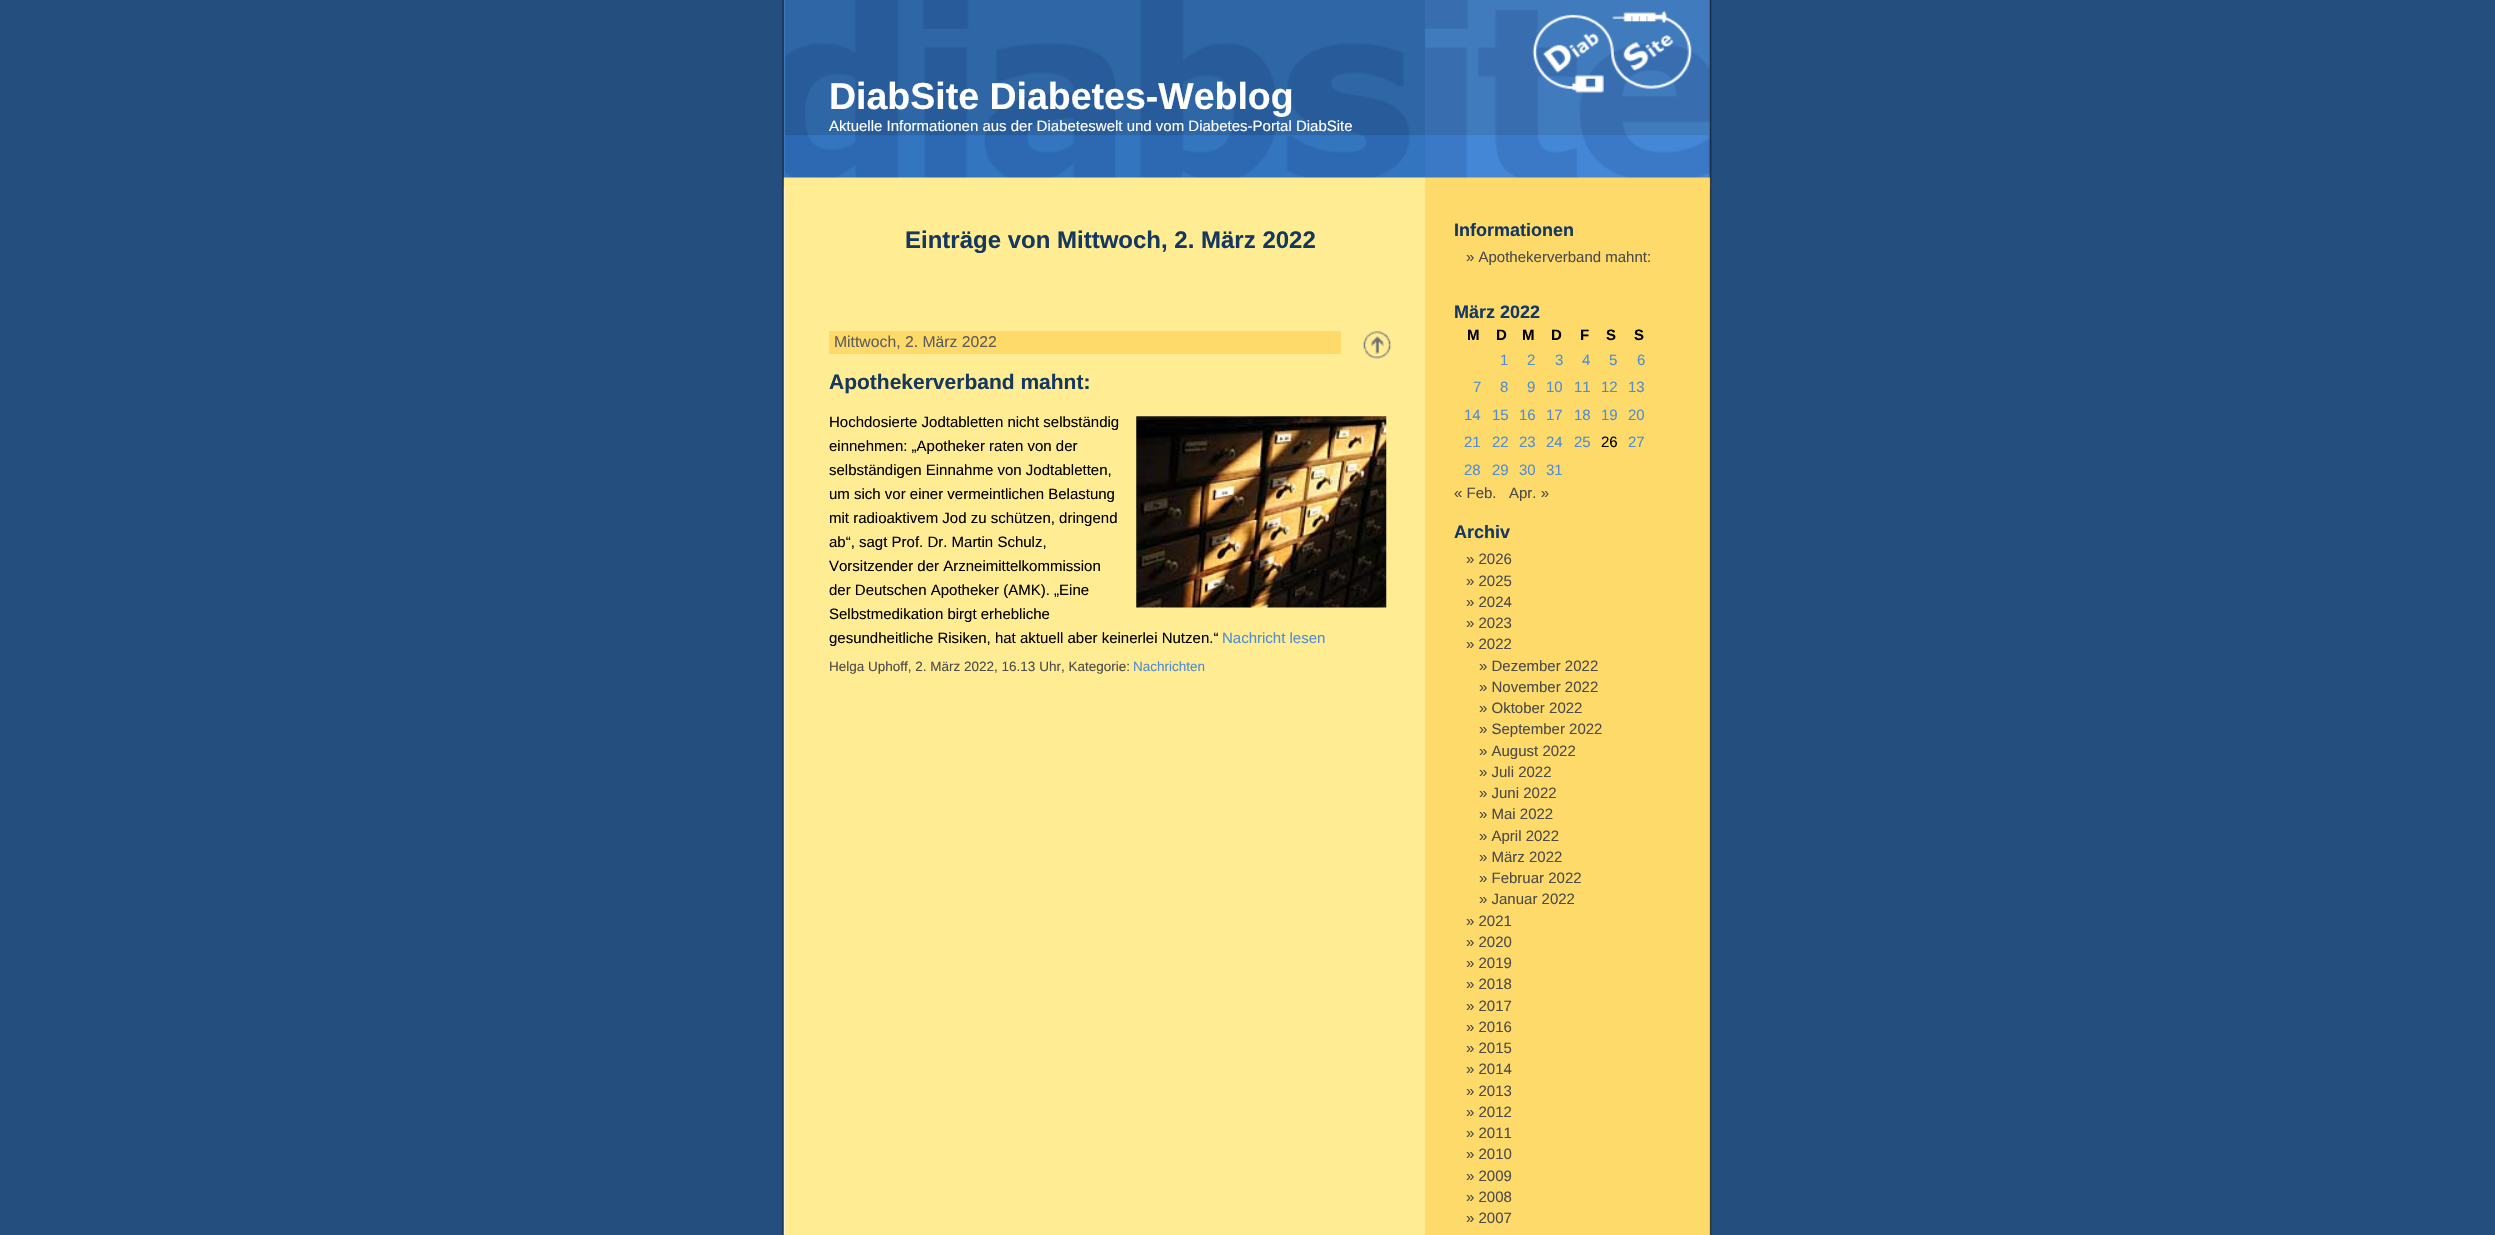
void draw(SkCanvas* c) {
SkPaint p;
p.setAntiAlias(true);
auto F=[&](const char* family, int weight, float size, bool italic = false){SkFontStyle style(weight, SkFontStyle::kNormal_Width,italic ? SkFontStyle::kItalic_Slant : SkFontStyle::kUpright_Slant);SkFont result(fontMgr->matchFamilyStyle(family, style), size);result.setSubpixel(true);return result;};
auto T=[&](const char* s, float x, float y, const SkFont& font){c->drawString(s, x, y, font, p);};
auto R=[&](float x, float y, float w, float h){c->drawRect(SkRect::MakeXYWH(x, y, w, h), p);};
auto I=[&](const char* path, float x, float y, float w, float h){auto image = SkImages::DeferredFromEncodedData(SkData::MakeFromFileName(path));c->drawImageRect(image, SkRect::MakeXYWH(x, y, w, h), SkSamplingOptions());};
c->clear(0xff244e7e);
I("1.png",782,0,930,1235);
I("2.png",783,0,928,188);
I("3.png",1532,11,160,82);
auto f1 = F("Liberation Sans",700,37.5);
p.setColor(0xffffffff);
T("DiabSite Diabetes-Weblog",829,109,f1);
auto f2 = F("Liberation Sans",400,15);
T("Aktuelle Informationen aus der Diabeteswelt und vom Diabetes-Portal DiabSite",829,131,f2);
auto f3 = F("Liberation Sans",700,24);
p.setColor(0xff153860);
T("Einträge von Mittwoch, 2. März 2022",905,248,f3);
p.setColor(0xfffeda6b);
R(829,331,512,23);
auto f4 = F("Liberation Sans",400,15.75);
p.setColor(0xff5d5d5d);
T("Mittwoch, 2. März 2022",834,347,f4);
I("4.png",1363,331,29,28);
auto f5 = F("Liberation Sans",700,21);
p.setColor(0xff153860);
T("Apothekerverband mahnt:",829,389,f5);
p.setColor(0xff000000);
T("Hochdosierte Jodtabletten nicht selbständig",829,427,f2);
I("5.png",1136,416,251,192);
T("einnehmen: „Apotheker raten von der",829,451,f2);
T("selbständigen Einnahme von Jodtabletten,",829,475,f2);
T("um sich vor einer vermeintlichen Belastung",829,499,f2);
T("mit radioaktivem Jod zu schützen, dringend",829,523,f2);
T("ab“, sagt Prof. Dr. Martin Schulz,",829,547,f2);
T("Vorsitzender der Arzneimittelkommission",829,571,f2);
T("der Deutschen Apotheker (AMK). „Eine",829,595,f2);
T("Selbstmedikation birgt erhebliche",829,619,f2);
T("gesundheitliche Risiken, hat aktuell aber keinerlei Nutzen.“",829,643,f2);
p.setColor(0xff508cd3);
T("Nachricht lesen",1222,643,f2);
auto f6 = F("Liberation Sans",400,13.5);
p.setColor(0xff4b4b4b);
T("Helga Uphoff, 2. März 2022, 16.13 Uhr, Kategorie:",829,671,f6);
p.setColor(0xff508cd3);
T("Nachrichten",1133,671,f6);
auto f7 = F("Liberation Sans",700,18);
p.setColor(0xff153860);
T("Informationen",1454,236,f7);
p.setColor(0xff4b4b4b);
T("» Apothekerverband mahnt:",1466,262,f2);
p.setColor(0xff153860);
T("März 2022",1454,318,f7);
auto f8 = F("Liberation Sans",700,15);
p.setColor(0xff000000);
T("M",1467,340,f8);
T("D",1496,340,f8);
T("M",1522,340,f8);
T("D",1551,340,f8);
T("F",1580,340,f8);
T("S",1606,340,f8);
T("S",1634,340,f8);
p.setColor(0xff508cd3);
T("1",1500,365,f2);
T("2",1527,365,f2);
T("3",1555,365,f2);
T("4",1582,365,f2);
T("5",1609,365,f2);
T("6",1637,365,f2);
T("7",1473,392,f2);
T("8",1500,392,f2);
T("9",1527,392,f2);
T("10",1546,392,f2);
T("11",1574,392,f2);
T("12",1601,392,f2);
T("13",1628,392,f2);
T("14",1464,420,f2);
T("15",1492,420,f2);
T("16",1519,420,f2);
T("17",1546,420,f2);
T("18",1574,420,f2);
T("19",1601,420,f2);
T("20",1628,420,f2);
T("21",1464,447,f2);
T("22",1492,447,f2);
T("23",1519,447,f2);
T("24",1546,447,f2);
T("25",1574,447,f2);
p.setColor(0xff000000);
T("26",1601,447,f2);
p.setColor(0xff508cd3);
T("27",1628,447,f2);
T("28",1464,475,f2);
T("29",1492,475,f2);
T("30",1519,475,f2);
T("31",1546,475,f2);
p.setColor(0xff4b4b4b);
T("« Feb.",1454,498,f2);
T("Apr. »",1509,498,f2);
p.setColor(0xff153860);
T("Archiv",1454,538,f7);
p.setColor(0xff4b4b4b);
T("» 2026",1466,564,f2);
T("» 2025",1466,586,f2);
T("» 2024",1466,607,f2);
T("» 2023",1466,628,f2);
T("» 2022",1466,649,f2);
T("» Dezember 2022",1479,671,f2);
T("» November 2022",1479,692,f2);
T("» Oktober 2022",1479,713,f2);
T("» September 2022",1479,734,f2);
T("» August 2022",1479,756,f2);
T("» Juli 2022",1479,777,f2);
T("» Juni 2022",1479,798,f2);
T("» Mai 2022",1479,819,f2);
T("» April 2022",1479,841,f2);
T("» März 2022",1479,862,f2);
T("» Februar 2022",1479,883,f2);
T("» Januar 2022",1479,904,f2);
T("» 2021",1466,926,f2);
T("» 2020",1466,947,f2);
T("» 2019",1466,968,f2);
T("» 2018",1466,989,f2);
T("» 2017",1466,1011,f2);
T("» 2016",1466,1032,f2);
T("» 2015",1466,1053,f2);
T("» 2014",1466,1074,f2);
T("» 2013",1466,1096,f2);
T("» 2012",1466,1117,f2);
T("» 2011",1466,1138,f2);
T("» 2010",1466,1159,f2);
T("» 2009",1466,1181,f2);
T("» 2008",1466,1202,f2);
T("» 2007",1466,1223,f2);
}
